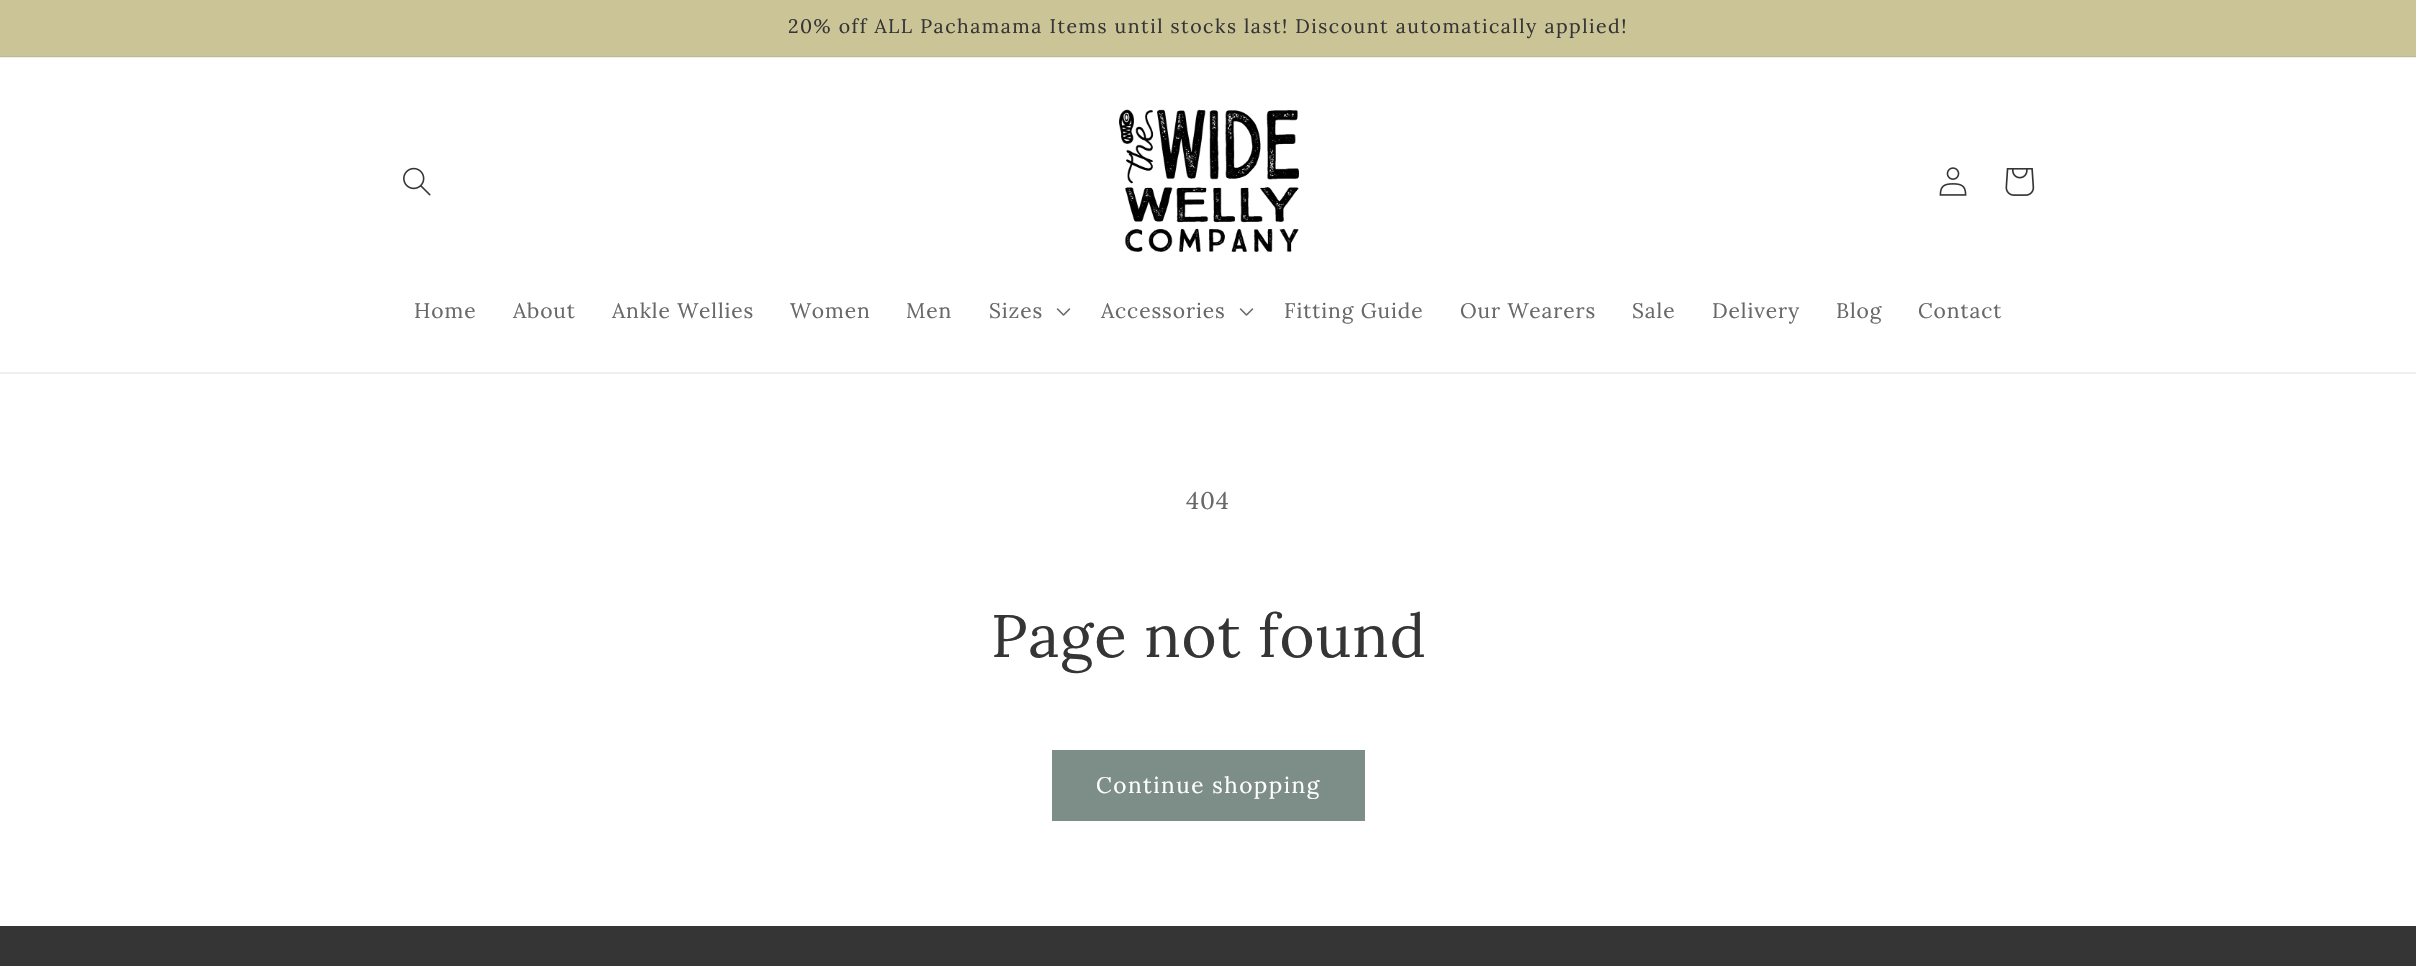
void draw(SkCanvas* c) {
SkPaint p;
p.setAntiAlias(true);
auto F=[&](const char* family, int weight, float size, bool italic = false){SkFontStyle style(weight, SkFontStyle::kNormal_Width,italic ? SkFontStyle::kItalic_Slant : SkFontStyle::kUpright_Slant);SkFont result(fontMgr->matchFamilyStyle(family, style), size);result.setSubpixel(true);return result;};
auto L=[&](const char* s, float x, float y, const SkFont& font, const SkPaint& ink, float letter, float word){std::vector<SkGlyphID> glyphs(font.countText(s, strlen(s), SkTextEncoding::kUTF8));std::vector<float> xs(glyphs.size());font.textToGlyphs(s, strlen(s), SkTextEncoding::kUTF8, glyphs);font.getXPos(glyphs, xs, x);float extra = 0;for (size_t i = 0; i < glyphs.size(); i++) {xs[i] += extra;extra += letter + word * (glyphs[i] == font.unicharToGlyph(' '));}c->drawTextBlob(SkTextBlob::MakeFromPosHGlyphs(glyphs, xs, y, font), 0, 0, ink);};
auto R=[&](float x, float y, float w, float h){c->drawRect(SkRect::MakeXYWH(x, y, w, h), p);};
auto I=[&](const char* path, float x, float y, float w, float h){auto image = SkImages::DeferredFromEncodedData(SkData::MakeFromFileName(path));c->drawImageRect(image, SkRect::MakeXYWH(x, y, w, h), SkSamplingOptions());};
c->clear(0xffffffff);
p.setColor(0xffefefef);
R(0,57,2416,1);
p.setColor(0xffcbc497);
R(0,0,2416,56);
p.setColor(0xffbfb98f);
R(0,56,2416,1);
auto f1 = F("Lora",400,19.5);
p.setColor(0xff353535);
L("20% off ALL Pachamama Items until stocks last! Discount automatically applied!",788,33,f1,p,1.5,0);
p.setColor(0xffefefef);
R(0,372,2416,2);
I("1.png",403,167,28,29);
I("2.png",1119,109,180,143);
I("3.png",1939,167,28,29);
I("4.png",2005,168,30,28);
auto f2 = F("Lora",400,21);
p.setColor(0xff686868);
L("Home",414,318,f2,p,.9,0);
L("About",513,318,f2,p,.9,0);
L("Ankle Wellies",612,318,f2,p,.9,0);
L("Women",790,318,f2,p,.9,0);
L("Men",906,318,f2,p,.9,0);
L("Sizes",989,318,f2,p,.9,0);
I("5.png",1056,308,15,8);
L("Accessories",1101,318,f2,p,.9,0);
I("5.png",1239,308,15,8);
L("Fitting Guide",1284,318,f2,p,.9,0);
L("Our Wearers",1460,318,f2,p,.9,0);
L("Sale",1632,318,f2,p,.9,0);
L("Delivery",1712,318,f2,p,.9,0);
L("Blog",1836,318,f2,p,.9,0);
L("Contact",1918,318,f2,p,.9,0);
auto f3 = F("Lora",400,24);
L("404",1186,509,f3,p,.9,0);
auto f4 = F("Lora",400,60);
p.setColor(0xff353535);
L("Page not found",991,657,f4,p,.9,0);
p.setColor(0xff7d8d87);
R(1052,750,313,71);
auto f5 = F("Lora",400,22.5);
p.setColor(0xffffffff);
L("Continue shopping",1096,793,f5,p,1.5,0);
p.setColor(0xff353535);
R(0,926,2416,40);
}
